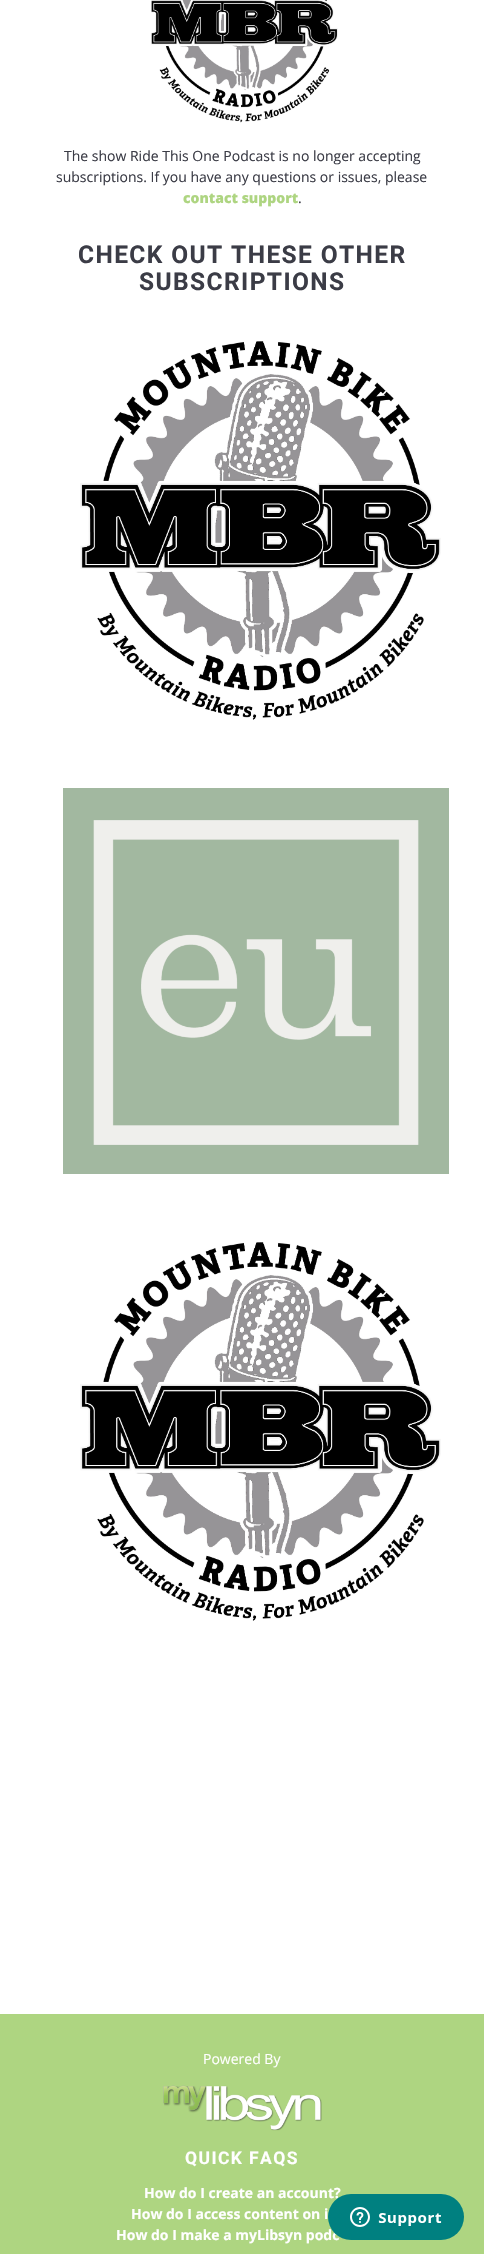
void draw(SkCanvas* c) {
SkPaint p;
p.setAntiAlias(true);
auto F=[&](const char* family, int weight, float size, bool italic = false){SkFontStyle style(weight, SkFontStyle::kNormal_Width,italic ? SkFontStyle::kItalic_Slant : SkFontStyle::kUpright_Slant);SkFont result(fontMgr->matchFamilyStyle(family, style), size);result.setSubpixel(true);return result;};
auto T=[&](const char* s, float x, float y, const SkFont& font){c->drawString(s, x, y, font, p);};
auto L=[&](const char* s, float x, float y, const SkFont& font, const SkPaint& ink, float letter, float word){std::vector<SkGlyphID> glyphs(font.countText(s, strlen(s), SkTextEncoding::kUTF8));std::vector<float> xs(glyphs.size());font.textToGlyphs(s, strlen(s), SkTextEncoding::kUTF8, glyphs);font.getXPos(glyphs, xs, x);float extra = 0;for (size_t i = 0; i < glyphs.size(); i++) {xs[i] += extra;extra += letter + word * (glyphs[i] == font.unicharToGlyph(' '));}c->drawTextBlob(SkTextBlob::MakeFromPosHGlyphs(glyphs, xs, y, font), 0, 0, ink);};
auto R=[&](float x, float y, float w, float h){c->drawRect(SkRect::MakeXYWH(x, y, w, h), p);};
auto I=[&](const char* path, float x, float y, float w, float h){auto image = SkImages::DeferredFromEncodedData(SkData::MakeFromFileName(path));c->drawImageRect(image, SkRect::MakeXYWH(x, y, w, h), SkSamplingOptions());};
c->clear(0xffffffff);
I("1.png",151,0,187,123);
auto f1 = F("Open Sans",400,14);
p.setColor(0xff3b3c46);
T("The show Ride This One Podcast is no longer accepting",64,161,f1);
T("subscriptions. If you have any questions or issues, please",56,182,f1);
auto f2 = F("Open Sans",800,14);
p.setColor(0xffaed581);
T("contact support",183,203,f2);
p.setColor(0xff3b3c46);
T(".",298,203,f1);
auto f3 = F("Roboto",700,24.5);
L("CHECK OUT THESE OTHER",78,263,f3,p,1.4,0);
L("SUBSCRIPTIONS",139,290,f3,p,1.4,0);
I("2.png",80,341,361,379);
I("3.png",63,788,386,386);
I("2.png",80,1242,361,379);
p.setColor(0xffaed581);
R(0,2014,484,240);
p.setColor(0xffffffff);
T("Powered By",203,2064,f1);
I("4.png",163,2085,159,46);
auto f4 = F("Roboto",700,17.5);
L("QUICK FAQS",185,2164,f4,p,1.4,0);
auto f5 = F("Open Sans",700,14);
T("How do I create an account?",144,2198,f5);
T("How do I access content on i",131,2219,f5);
T("How do I make a myLibsyn podc",116,2240,f5);
I("5.png",328,2194,136,46);
}
